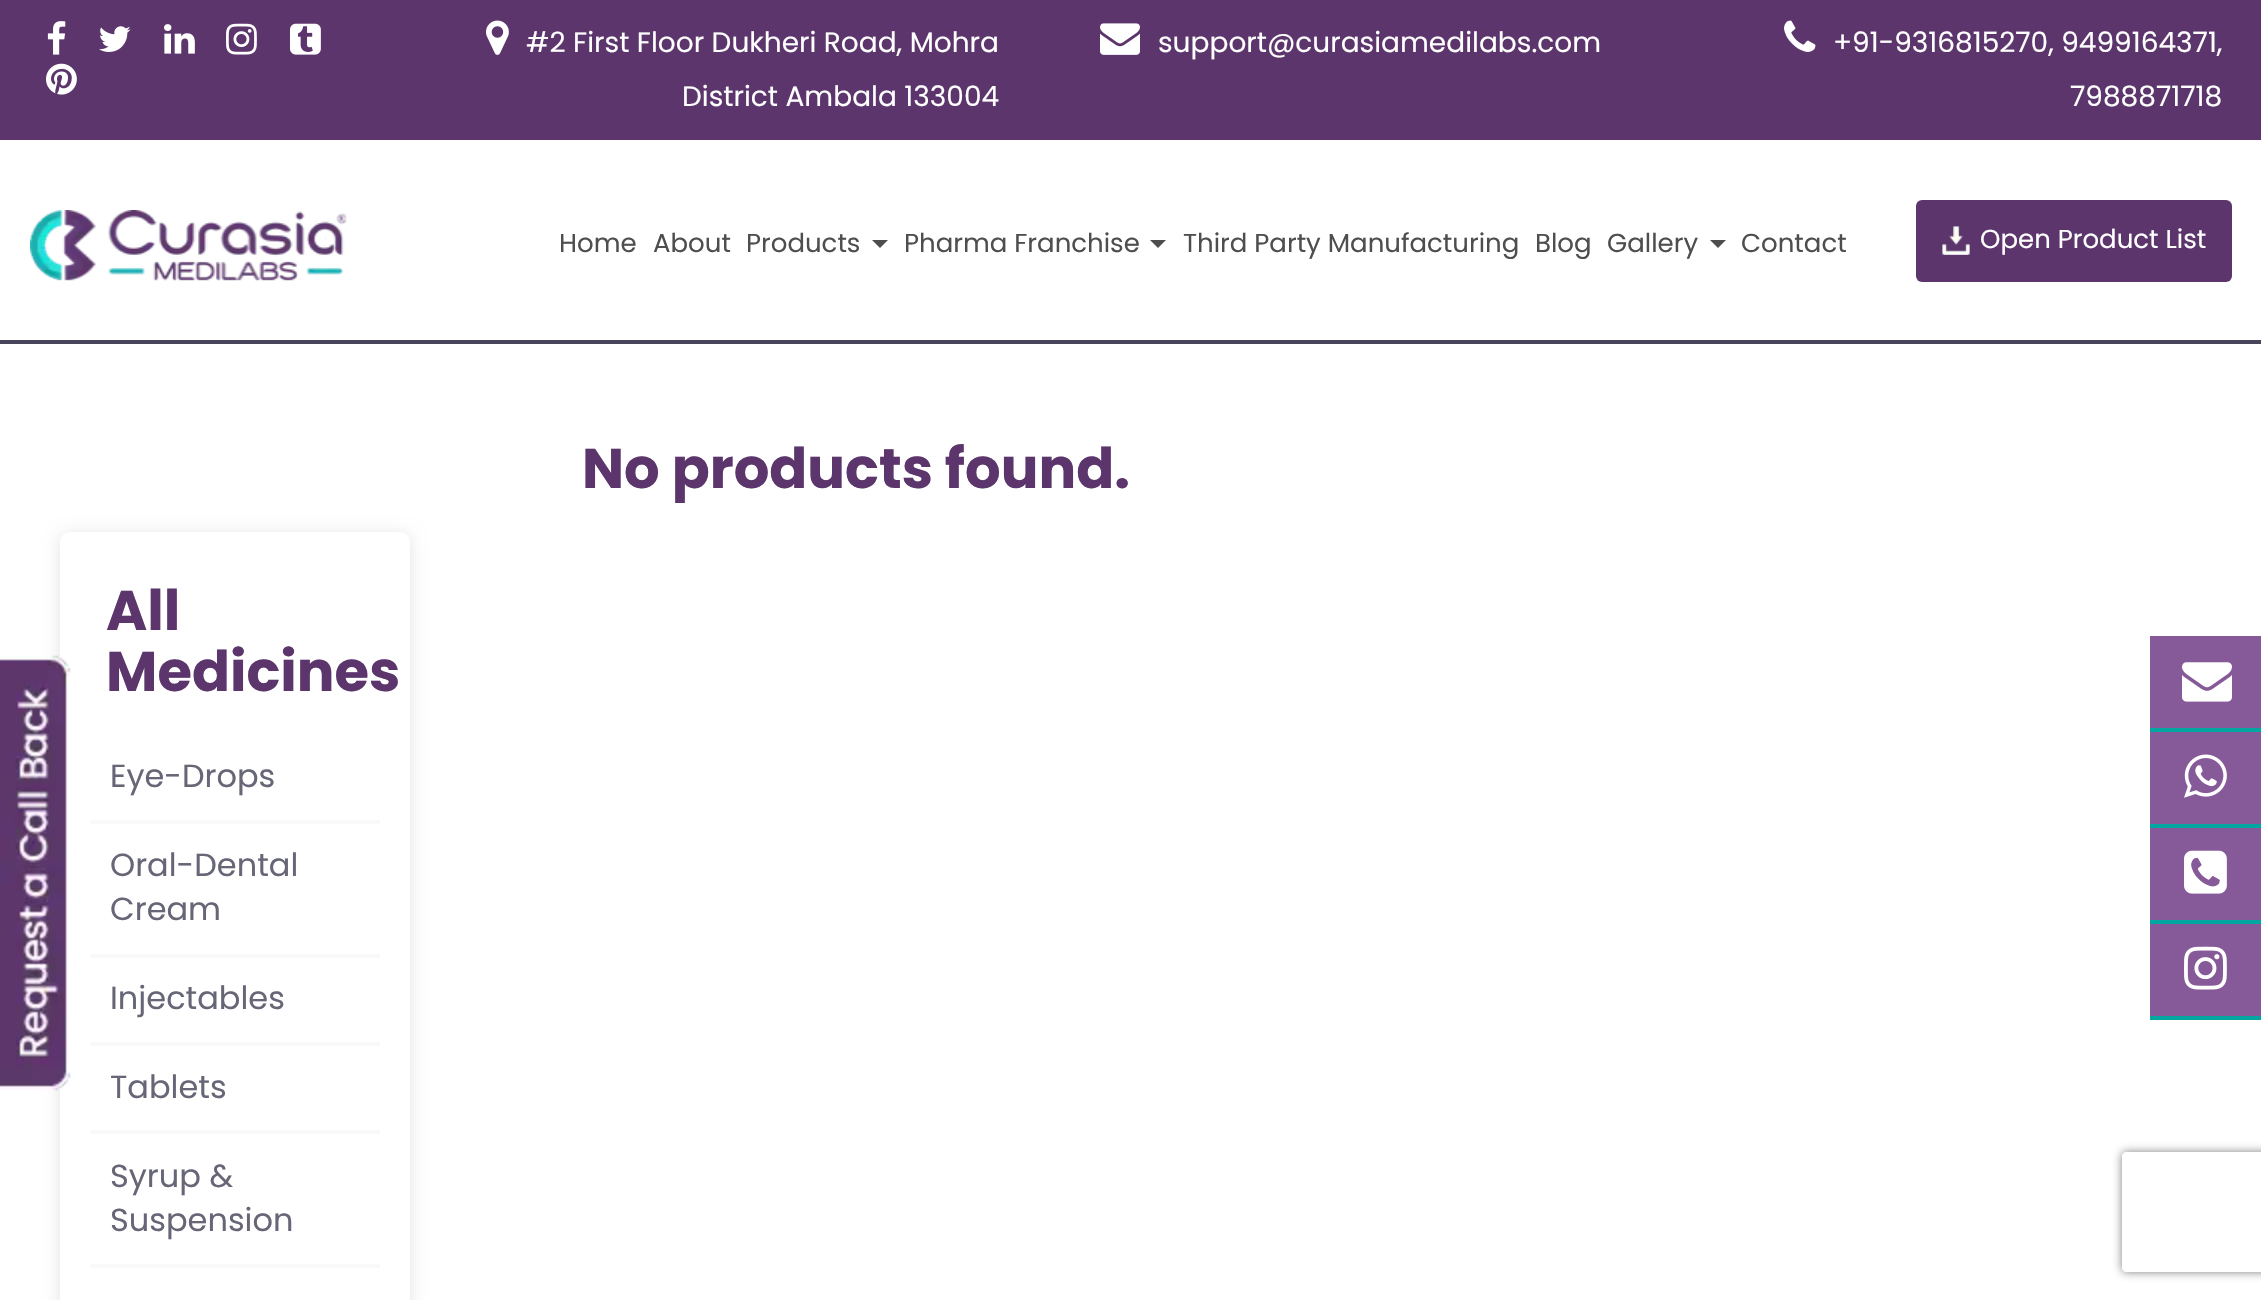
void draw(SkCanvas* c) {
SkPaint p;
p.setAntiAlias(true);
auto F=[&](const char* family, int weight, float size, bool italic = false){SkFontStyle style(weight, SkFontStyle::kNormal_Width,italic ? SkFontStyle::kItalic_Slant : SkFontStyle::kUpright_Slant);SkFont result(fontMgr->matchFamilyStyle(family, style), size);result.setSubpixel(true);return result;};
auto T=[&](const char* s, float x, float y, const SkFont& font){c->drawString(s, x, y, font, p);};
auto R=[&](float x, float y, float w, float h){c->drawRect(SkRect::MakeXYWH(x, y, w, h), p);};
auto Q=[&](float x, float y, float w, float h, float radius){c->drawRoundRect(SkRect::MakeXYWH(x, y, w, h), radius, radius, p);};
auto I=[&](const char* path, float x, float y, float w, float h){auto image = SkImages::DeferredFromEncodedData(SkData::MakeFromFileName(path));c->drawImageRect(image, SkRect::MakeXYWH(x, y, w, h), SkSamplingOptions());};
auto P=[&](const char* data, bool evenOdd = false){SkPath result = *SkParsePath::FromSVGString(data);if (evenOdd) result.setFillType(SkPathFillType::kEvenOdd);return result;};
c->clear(0xffffffff);
p.setColor(0xff48455a);
R(0,340,2261,4);
p.setColor(0xff5b356b);
R(0,0,2261,140);
I("1.png",47,21,19,34);
I("2.png",99,26,32,26);
I("3.png",164,24,31,30);
I("4.png",226,23,31,32);
I("5.png",290,23,31,32);
I("6.png",46,63,31,32);
I("7.png",486,20,23,35);
auto f1 = F("Poppins",400,28);
p.setColor(0xffffffff);
T("#2 First Floor Dukheri Road, Mohra",526,52,f1);
T("District Ambala 133004",682,106,f1);
I("8.png",1100,23,40,32);
T("support@curasiamedilabs.com",1158,52,f1);
I("9.png",1784,20,32,32);
T("+91-9316815270, 9499164371,",1833,52,f1);
T("7988871718",2070,106,f1);
I("10.png",30,210,317,71);
auto f2 = F("Poppins",400,26);
p.setColor(0xff4e4e4e);
T("Home",559,252,f2);
T("About",653,252,f2);
T("Products",746,252,f2);
c->drawPath(P("M872 240h16l-8 8z"),p);
T("Pharma Franchise",904,252,f2);
c->drawPath(P("M1150 240h16l-8 8z"),p);
T("Third Party Manufacturing",1183,252,f2);
T("Blog",1535,252,f2);
T("Gallery",1607,252,f2);
c->drawPath(P("M1710 240h16l-8 8z"),p);
T("Contact",1741,252,f2);
p.setColor(0xff5b356b);
Q(1916,200,316,82,6);
I("11.png",1942,226,28,29);
p.setColor(0xffffffff);
T("Open Product List",1980,248,f2);
c->save();
c->clipPath(P("M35 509h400v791h-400zm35 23h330c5.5 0 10 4.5 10 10v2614c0 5.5-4.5 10-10 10h-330c-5.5 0-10-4.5-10-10v-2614c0-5.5 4.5-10 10-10z",true),true);
p.setColor(0x1c000000);
p.setMaskFilter(SkMaskFilter::MakeBlur(kNormal_SkBlurStyle, 8));
c->drawRoundRect(SkRect::MakeXYWH(60,534,350,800),10,10,p);
p.setMaskFilter(nullptr);
c->restore();
I("12.png",0,655,71,436);
auto f3 = F("Poppins",700,56);
p.setColor(0xff5b356b);
T("No products found.",582,488,f3);
T("All",106,630,f3);
T("Medicines",106,691,f3);
p.setColor(0xfff9f9f9);
R(90,820,290,4);
auto f4 = F("Poppins",400,32);
p.setColor(0xff666677);
T("Eye-Drops",110,787,f4);
p.setColor(0xfff9f9f9);
R(90,954,290,4);
p.setColor(0xff666677);
T("Oral-Dental",110,876,f4);
T("Cream",110,920,f4);
p.setColor(0xfff9f9f9);
R(90,1042,290,4);
p.setColor(0xff666677);
T("Injectables",110,1009,f4);
p.setColor(0xfff9f9f9);
R(90,1130,290,4);
p.setColor(0xff666677);
T("Tablets",110,1098,f4);
p.setColor(0xfff9f9f9);
R(90,1264,290,4);
p.setColor(0xff666677);
T("Syrup &",110,1187,f4);
T("Suspension",110,1231,f4);
p.setColor(0xff865999);
R(2150,636,111,380);
p.setColor(0xff03a6a1);
R(2150,728,111,4);
I("13.png",2182,662,50,40);
R(2150,824,111,4);
I("14.png",2184,754,43,44);
R(2150,920,111,4);
I("15.png",2184,850,43,44);
R(2150,1016,111,4);
I("16.png",2184,946,43,44);
c->save();
c->clipPath(P("M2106 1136h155v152h-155zm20 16h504c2 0 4 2 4 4v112c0 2-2 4-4 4h-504c-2 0-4-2-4-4v-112c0-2 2-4 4-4z",true),true);
p.setColor(0xff808080);
p.setMaskFilter(SkMaskFilter::MakeBlur(kNormal_SkBlurStyle, 5));
c->drawRoundRect(SkRect::MakeXYWH(2122,1152,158,120),4,4,p);
p.setMaskFilter(nullptr);
c->restore();
}
